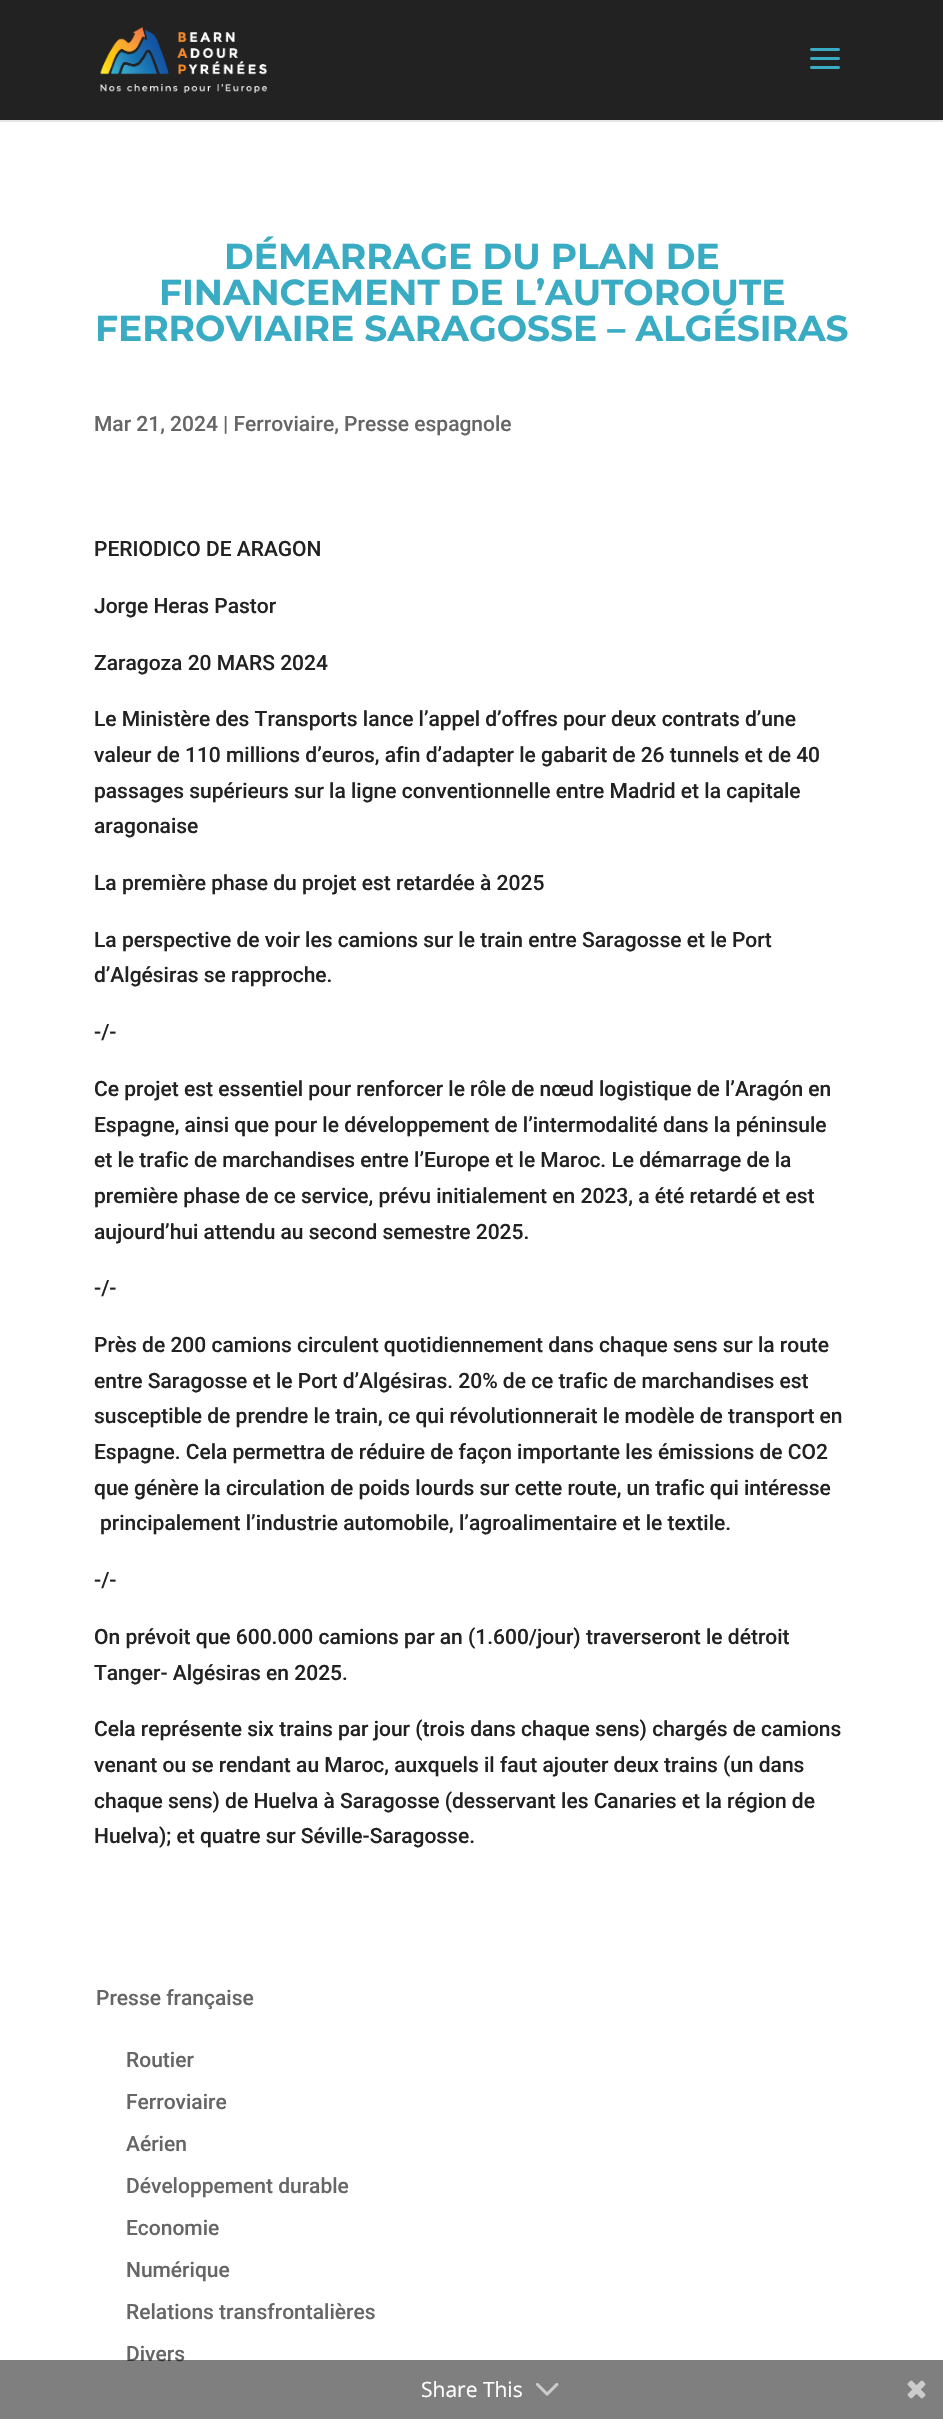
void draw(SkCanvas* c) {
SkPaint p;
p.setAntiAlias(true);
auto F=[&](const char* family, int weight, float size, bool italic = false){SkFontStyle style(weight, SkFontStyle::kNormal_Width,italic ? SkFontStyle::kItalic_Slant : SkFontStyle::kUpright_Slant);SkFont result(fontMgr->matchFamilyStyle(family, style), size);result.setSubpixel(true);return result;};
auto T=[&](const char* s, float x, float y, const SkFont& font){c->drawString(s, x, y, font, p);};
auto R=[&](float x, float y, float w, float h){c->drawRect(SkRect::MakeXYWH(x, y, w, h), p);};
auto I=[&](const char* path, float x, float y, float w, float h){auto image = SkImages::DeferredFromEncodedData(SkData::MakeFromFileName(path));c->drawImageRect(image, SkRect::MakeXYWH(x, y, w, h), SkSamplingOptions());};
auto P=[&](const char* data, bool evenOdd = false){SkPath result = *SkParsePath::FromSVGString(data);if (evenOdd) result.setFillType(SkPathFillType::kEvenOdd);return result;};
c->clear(0xffffffff);
p.setColor(0xffe6e6e6);
c->drawPath(P("M0 120v2h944v-120v118z"),p);
p.setColor(0xff222222);
R(0,0,943,120);
I("1.png",100,27,167,66);
I("2.png",810,48,30,21);
auto f1 = F("Montserrat",700,36);
p.setColor(0xff39abc3);
T("DÉMARRAGE DU PLAN DE",224,269,f1);
T("FINANCEMENT DE L’AUTOROUTE",159,305,f1);
T("FERROVIAIRE SARAGOSSE – ALGÉSIRAS",95,341,f1);
auto f2 = F("Roboto",500,21);
p.setColor(0xff666666);
T("Mar 21, 2024 | Ferroviaire, Presse espagnole",94,431,f2);
p.setColor(0xff222222);
T("PERIODICO DE ARAGON",94,556,f2);
T("Jorge Heras Pastor",94,613,f2);
T("Zaragoza 20 MARS 2024",94,670,f2);
T("Le Ministère des Transports lance l’appel d’offres pour deux contrats d’une",94,726,f2);
T("valeur de 110 millions d’euros, afin d’adapter le gabarit de 26 tunnels et de 40",94,762,f2);
T("passages supérieurs sur la ligne conventionnelle entre Madrid et la capitale",94,798,f2);
T("aragonaise",94,833,f2);
T("La première phase du projet est retardée à 2025",94,890,f2);
T("La perspective de voir les camions sur le train entre Saragosse et le Port",94,947,f2);
T("d’Algésiras se rapproche.",94,982,f2);
T("-/-",94,1039,f2);
T("Ce projet est essentiel pour renforcer le rôle de nœud logistique de l’Aragón en",94,1096,f2);
T("Espagne, ainsi que pour le développement de l’intermodalité dans la péninsule",94,1132,f2);
T("et le trafic de marchandises entre l’Europe et le Maroc. Le démarrage de la",94,1167,f2);
T("première phase de ce service, prévu initialement en 2023, a été retardé et est",94,1203,f2);
T("aujourd’hui attendu au second semestre 2025.",94,1239,f2);
T("-/-",94,1295,f2);
T("Près de 200 camions circulent quotidiennement dans chaque sens sur la route",94,1352,f2);
T("entre Saragosse et le Port d’Algésiras. 20% de ce trafic de marchandises est",94,1388,f2);
T("susceptible de prendre le train, ce qui révolutionnerait le modèle de transport en",94,1423,f2);
T("Espagne. Cela permettra de réduire de façon importante les émissions de CO2",94,1459,f2);
T("que génère la circulation de poids lourds sur cette route, un trafic qui intéresse",94,1495,f2);
T("principalement l’industrie automobile, l’agroalimentaire et le textile.",100,1530,f2);
T("-/-",94,1587,f2);
T("On prévoit que 600.000 camions par an (1.600/jour) traverseront le détroit",94,1644,f2);
T("Tanger- Algésiras en 2025.",94,1680,f2);
T("Cela représente six trains par jour (trois dans chaque sens) chargés de camions",94,1736,f2);
T("venant ou se rendant au Maroc, auxquels il faut ajouter deux trains (un dans",94,1772,f2);
T("chaque sens) de Huelva à Saragosse (desservant les Canaries et la région de",94,1808,f2);
T("Huelva); et quatre sur Séville-Saragosse.",94,1843,f2);
p.setColor(0xff666666);
T("Presse française",96,2005,f2);
p.setColor(0xffffffff);
R(208,2009,4,1);
p.setColor(0xff666666);
T("Routier",126,2067,f2);
T("Ferroviaire",126,2109,f2);
T("Aérien",126,2151,f2);
T("Développement durable",126,2193,f2);
T("Economie",126,2235,f2);
T("Numérique",126,2277,f2);
T("Relations transfrontalières",126,2319,f2);
T("Divers",126,2361,f2);
p.setColor(0x80000000);
R(0,2360,943,59);
auto f3 = F("Open Sans",400,21);
p.setColor(0xffffffff);
T("Share This",421,2397,f3);
I("3.png",535,2383,24,13);
I("4.png",907,2380,19,19);
}
